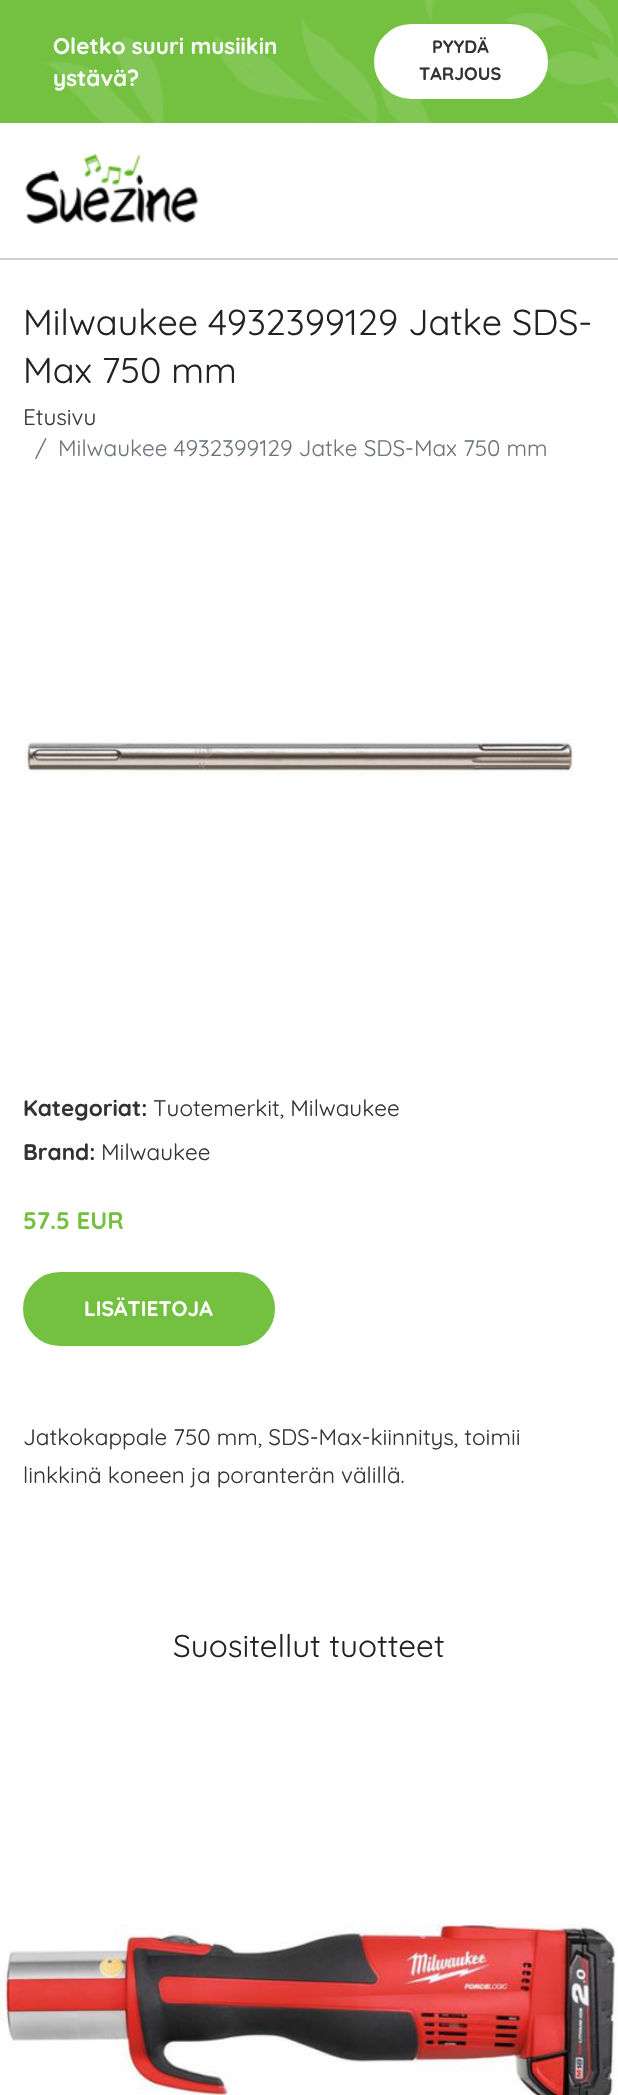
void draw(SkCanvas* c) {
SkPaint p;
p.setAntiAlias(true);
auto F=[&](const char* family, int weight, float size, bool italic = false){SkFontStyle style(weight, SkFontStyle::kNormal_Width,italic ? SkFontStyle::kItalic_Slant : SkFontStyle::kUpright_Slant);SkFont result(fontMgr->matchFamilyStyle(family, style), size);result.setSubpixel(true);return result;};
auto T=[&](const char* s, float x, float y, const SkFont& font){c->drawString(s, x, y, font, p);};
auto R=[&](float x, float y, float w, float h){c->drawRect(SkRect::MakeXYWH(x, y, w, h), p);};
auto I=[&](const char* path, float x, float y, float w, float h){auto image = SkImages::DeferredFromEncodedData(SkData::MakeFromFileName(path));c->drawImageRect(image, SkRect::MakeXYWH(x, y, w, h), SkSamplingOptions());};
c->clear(0xffffffff);
p.setColor(0xffd1d1d1);
R(0,258,618,2);
p.setColor(0xff74c142);
R(0,0,44,123);
I("1.png",44,0,574,123);
auto f1 = F("Quicksand",700,22.5);
p.setColor(0xfff8f9fa);
T("Oletko suuri musiikin",53,54,f1);
T("ystävä?",53,86,f1);
p.setColor(0xffffffff);
c->drawRoundRect(SkRect::MakeXYWH(375,25,172,73),36.5,36.5,p);
p.setStroke(true);
p.setStrokeWidth(2);
c->drawRoundRect(SkRect::MakeXYWH(375,25,172,73),36.5,36.5,p);
auto f2 = F("Quicksand",700,18);
p.setStroke(false);
p.setColor(0xff333333);
T("PYYDÄ",432,53,f2);
T("TARJOUS",419,80,f2);
I("2.png",25,154,174,70);
auto f3 = F("Quicksand",400,36);
p.setColor(0xff222222);
T("Milwaukee 4932399129 Jatke SDS-",23,335,f3);
T("Max 750 mm",23,383,f3);
auto f4 = F("Quicksand",400,22.5);
p.setColor(0xff343a40);
T("Etusivu",23,425,f4);
p.setColor(0xff6c757d);
T("/",35,456,f4);
T("Milwaukee 4932399129 Jatke SDS-Max 750 mm",58,456,f4);
I("3.png",22,739,551,38);
p.setColor(0xff333333);
T("Kategoriat:",23,1116,f1);
T("Tuotemerkit, Milwaukee",153,1116,f4);
T("Brand:",23,1160,f1);
T("Milwaukee",101,1160,f4);
auto f5 = F("Quicksand",700,24);
p.setColor(0xff74c142);
T("57.5 EUR",23,1229,f5);
c->drawRoundRect(SkRect::MakeXYWH(24,1273,250,72),36,36,p);
p.setStroke(true);
c->drawRoundRect(SkRect::MakeXYWH(24,1273,250,72),36,36,p);
auto f6 = F("Quicksand",700,21);
p.setStroke(false);
p.setColor(0xffffffff);
T("LISÄTIETOJA",84,1316,f6);
p.setColor(0xff333333);
T("Jatkokappale 750 mm, SDS-Max-kiinnitys, toimii",23,1445,f4);
T("linkkinä koneen ja poranterän välillä.",23,1483,f4);
auto f7 = F("Quicksand",400,31.5);
p.setColor(0xff222222);
T("Suositellut tuotteet",173,1657,f7);
I("4.png",0,1923,617,172);
}
